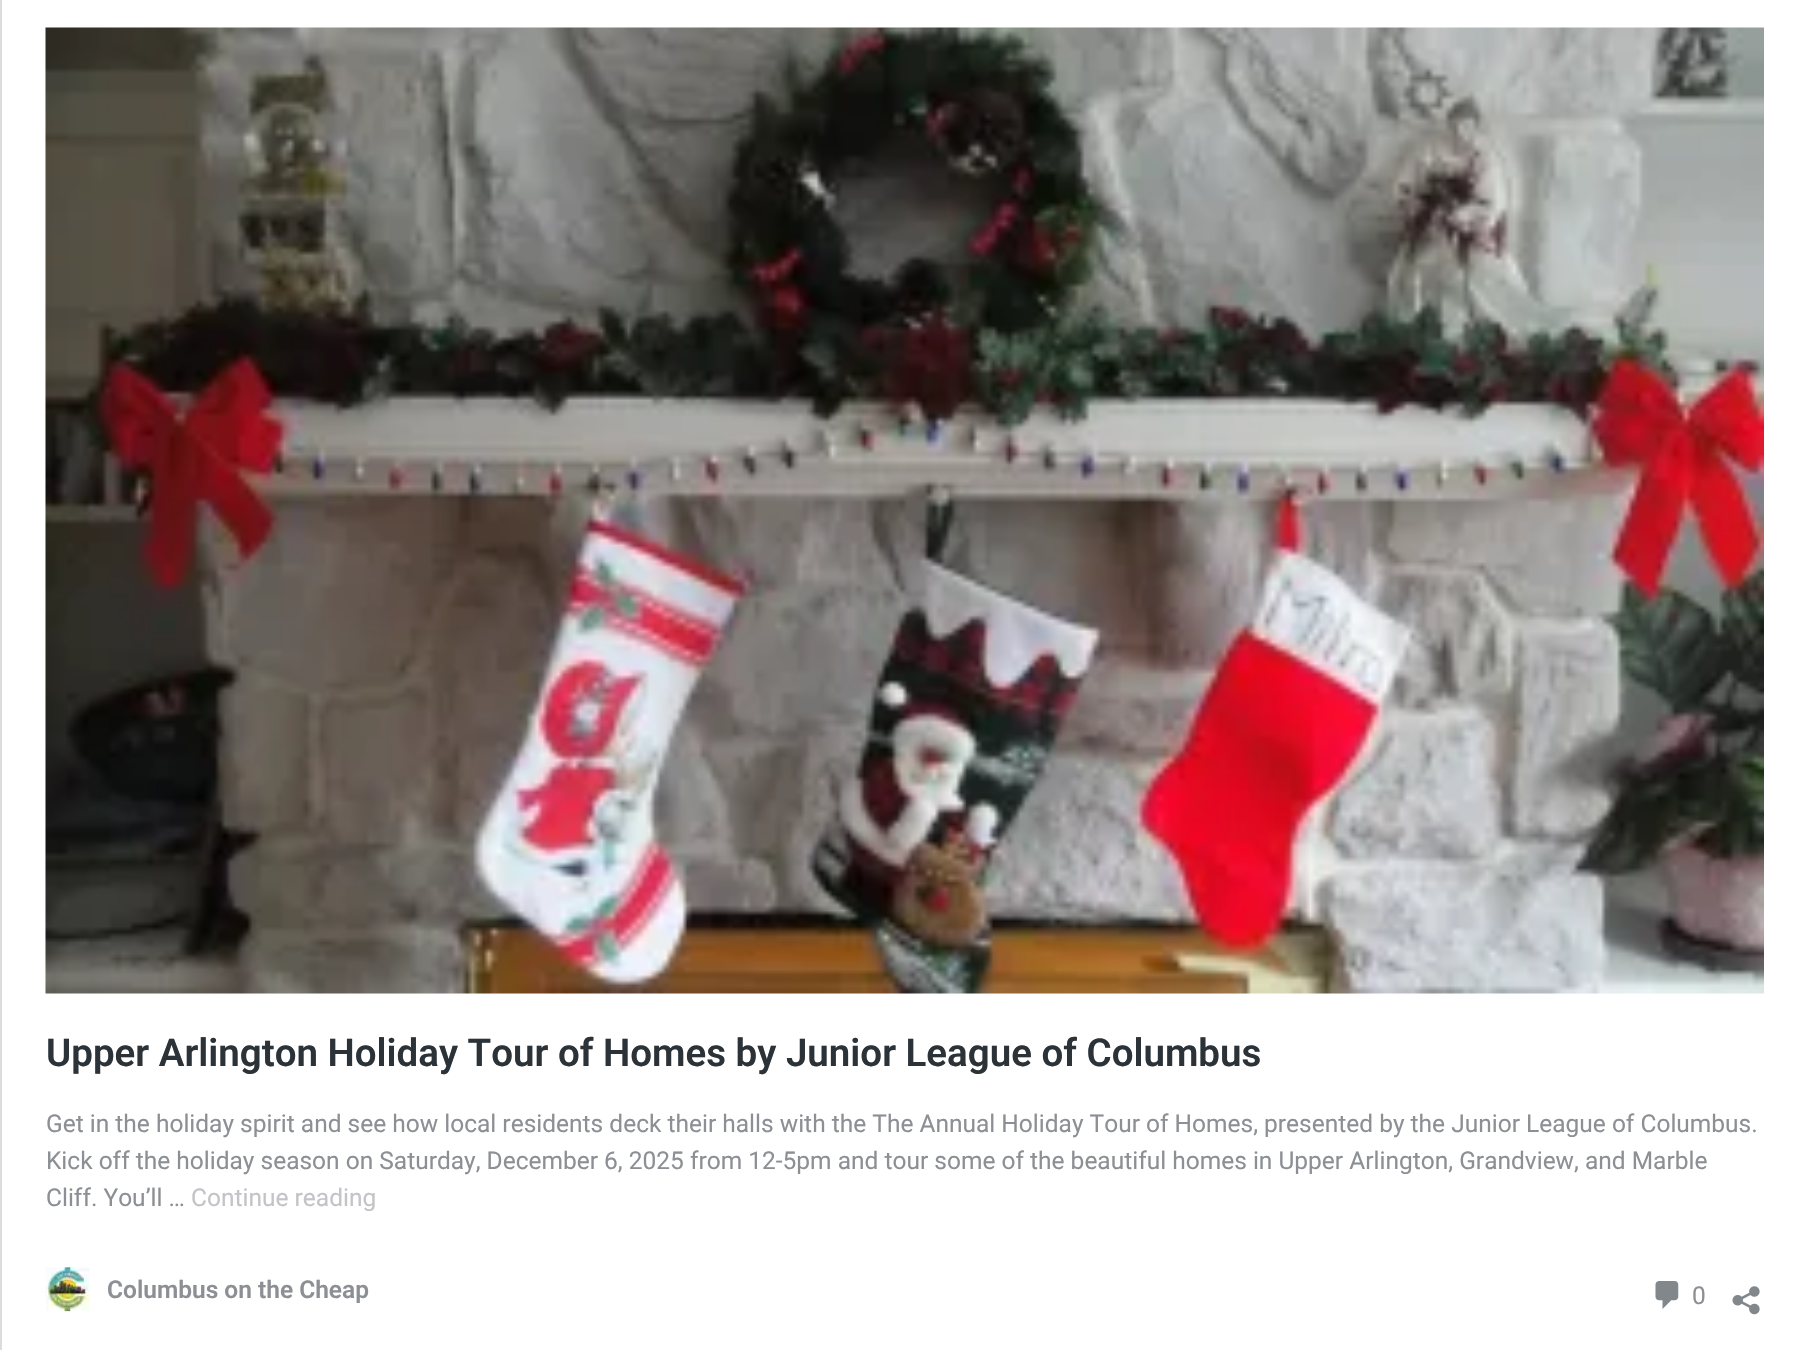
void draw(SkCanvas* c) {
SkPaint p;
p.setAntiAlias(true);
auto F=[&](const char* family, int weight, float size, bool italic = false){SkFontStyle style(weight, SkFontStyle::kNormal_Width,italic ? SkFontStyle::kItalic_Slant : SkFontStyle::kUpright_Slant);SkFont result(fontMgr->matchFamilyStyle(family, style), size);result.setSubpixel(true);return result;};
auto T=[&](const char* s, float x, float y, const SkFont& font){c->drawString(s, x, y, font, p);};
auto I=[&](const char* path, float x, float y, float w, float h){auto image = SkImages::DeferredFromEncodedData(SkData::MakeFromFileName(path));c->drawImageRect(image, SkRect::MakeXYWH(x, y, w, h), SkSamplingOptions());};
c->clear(0xffffffff);
p.setStroke(true);
p.setStrokeWidth(2);
p.setColor(0xffdcdcde);
c->drawRect(SkRect::MakeXYWH(1,-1,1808,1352),p);
I("1.png",45,27,1719,967);
auto f1 = F("Roboto",600,38.5);
p.setStroke(false);
p.setColor(0xff2c3338);
T("Upper Arlington Holiday Tour of Homes by Junior League of Columbus",46,1066,f1);
auto f2 = F("Roboto",400,24.5);
p.setColor(0xff8c8f94);
T("Get in the holiday spirit and see how local residents deck their halls with the The Annual Holiday Tour of Homes, presented by the Junior League of Columbus.",46,1132,f2);
T("Kick off the holiday season on Saturday, December 6, 2025 from 12-5pm and tour some of the beautiful homes in Upper Arlington, Grandview, and Marble",46,1169,f2);
T("Cliff. You’ll …",46,1206,f2);
p.setColor(0xffc3c4c7);
T("Continue reading",191,1206,f2);
I("2.png",45,1267,45,45);
auto f3 = F("Roboto",600,24.5);
p.setColor(0xff8c8f94);
T("Columbus on the Cheap",107,1298,f3);
I("3.png",1655,1281,24,28);
T("0",1692,1304,f2);
I("4.png",1732,1286,28,29);
}
